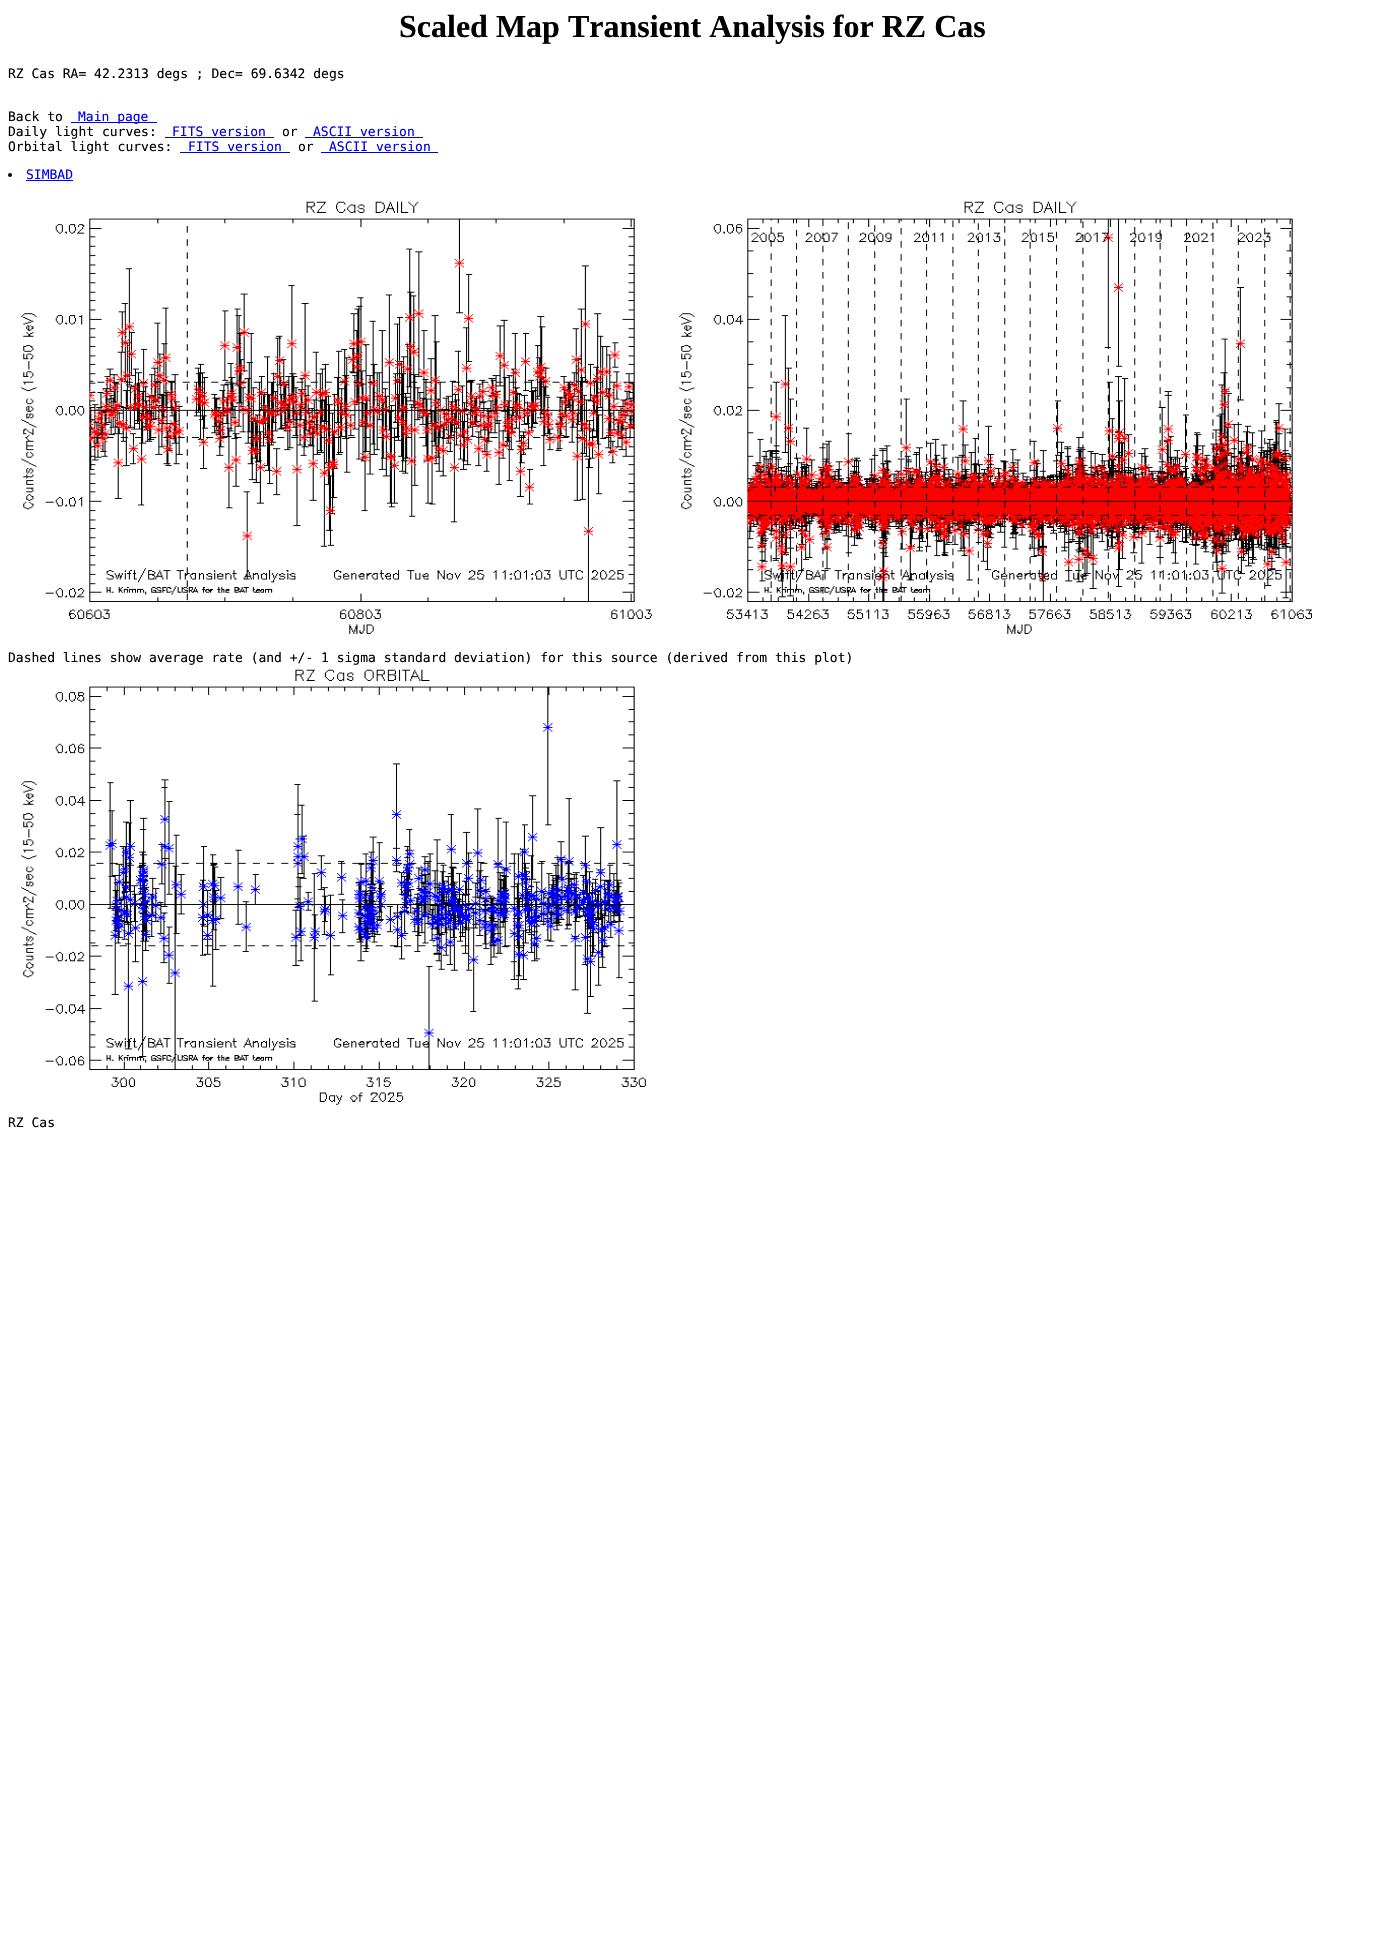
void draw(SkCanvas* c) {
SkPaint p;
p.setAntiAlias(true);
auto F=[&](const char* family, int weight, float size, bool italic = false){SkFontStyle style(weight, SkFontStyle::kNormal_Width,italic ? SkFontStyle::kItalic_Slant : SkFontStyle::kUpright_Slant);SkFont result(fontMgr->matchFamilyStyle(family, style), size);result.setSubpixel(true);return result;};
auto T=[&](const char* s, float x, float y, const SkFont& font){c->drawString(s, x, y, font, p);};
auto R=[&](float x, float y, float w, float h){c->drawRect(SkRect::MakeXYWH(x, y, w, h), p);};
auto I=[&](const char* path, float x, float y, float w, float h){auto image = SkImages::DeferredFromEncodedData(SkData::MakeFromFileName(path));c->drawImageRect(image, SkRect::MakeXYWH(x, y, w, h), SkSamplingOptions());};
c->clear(0xffffffff);
auto f1 = F("Liberation Serif",700,32);
p.setColor(0xff000000);
T("Scaled Map Transient Analysis for RZ Cas",399,37,f1);
auto f2 = F("DejaVu Sans Mono",400,13);
T("RZ Cas RA= 42.2313 degs ; Dec= 69.6342 degs",8,78,f2);
T("Back to",8,121,f2);
p.setColor(0xff0000ee);
R(71,122,86,1);
T("Main page",78,121,f2);
p.setColor(0xff000000);
T("Daily light curves:",8,136,f2);
p.setColor(0xff0000ee);
T("FITS version",172,136,f2);
R(165,137,109,1);
p.setColor(0xff000000);
T("or",282,136,f2);
p.setColor(0xff0000ee);
T("ASCII version",313,136,f2);
R(305,137,118,1);
p.setColor(0xff000000);
T("Orbital light curves:",8,151,f2);
p.setColor(0xff0000ee);
T("FITS version",188,151,f2);
R(180,152,110,1);
p.setColor(0xff000000);
T("or",298,151,f2);
p.setColor(0xff0000ee);
T("ASCII version",329,151,f2);
R(321,152,117,1);
p.setColor(0xff000000);
c->drawCircle(10,175,2,p);
p.setColor(0xff0000ee);
T("SIMBAD",26,179,f2);
R(26,180,47,1);
I("1.png",21,201,631,433);
I("2.png",679,201,633,433);
p.setColor(0xff000000);
T("Dashed lines show average rate (and +/- 1 sigma standard deviation) for this source (derived from this plot)",8,662,f2);
I("3.png",21,669,625,436);
T("RZ Cas",8,1127,f2);
}
